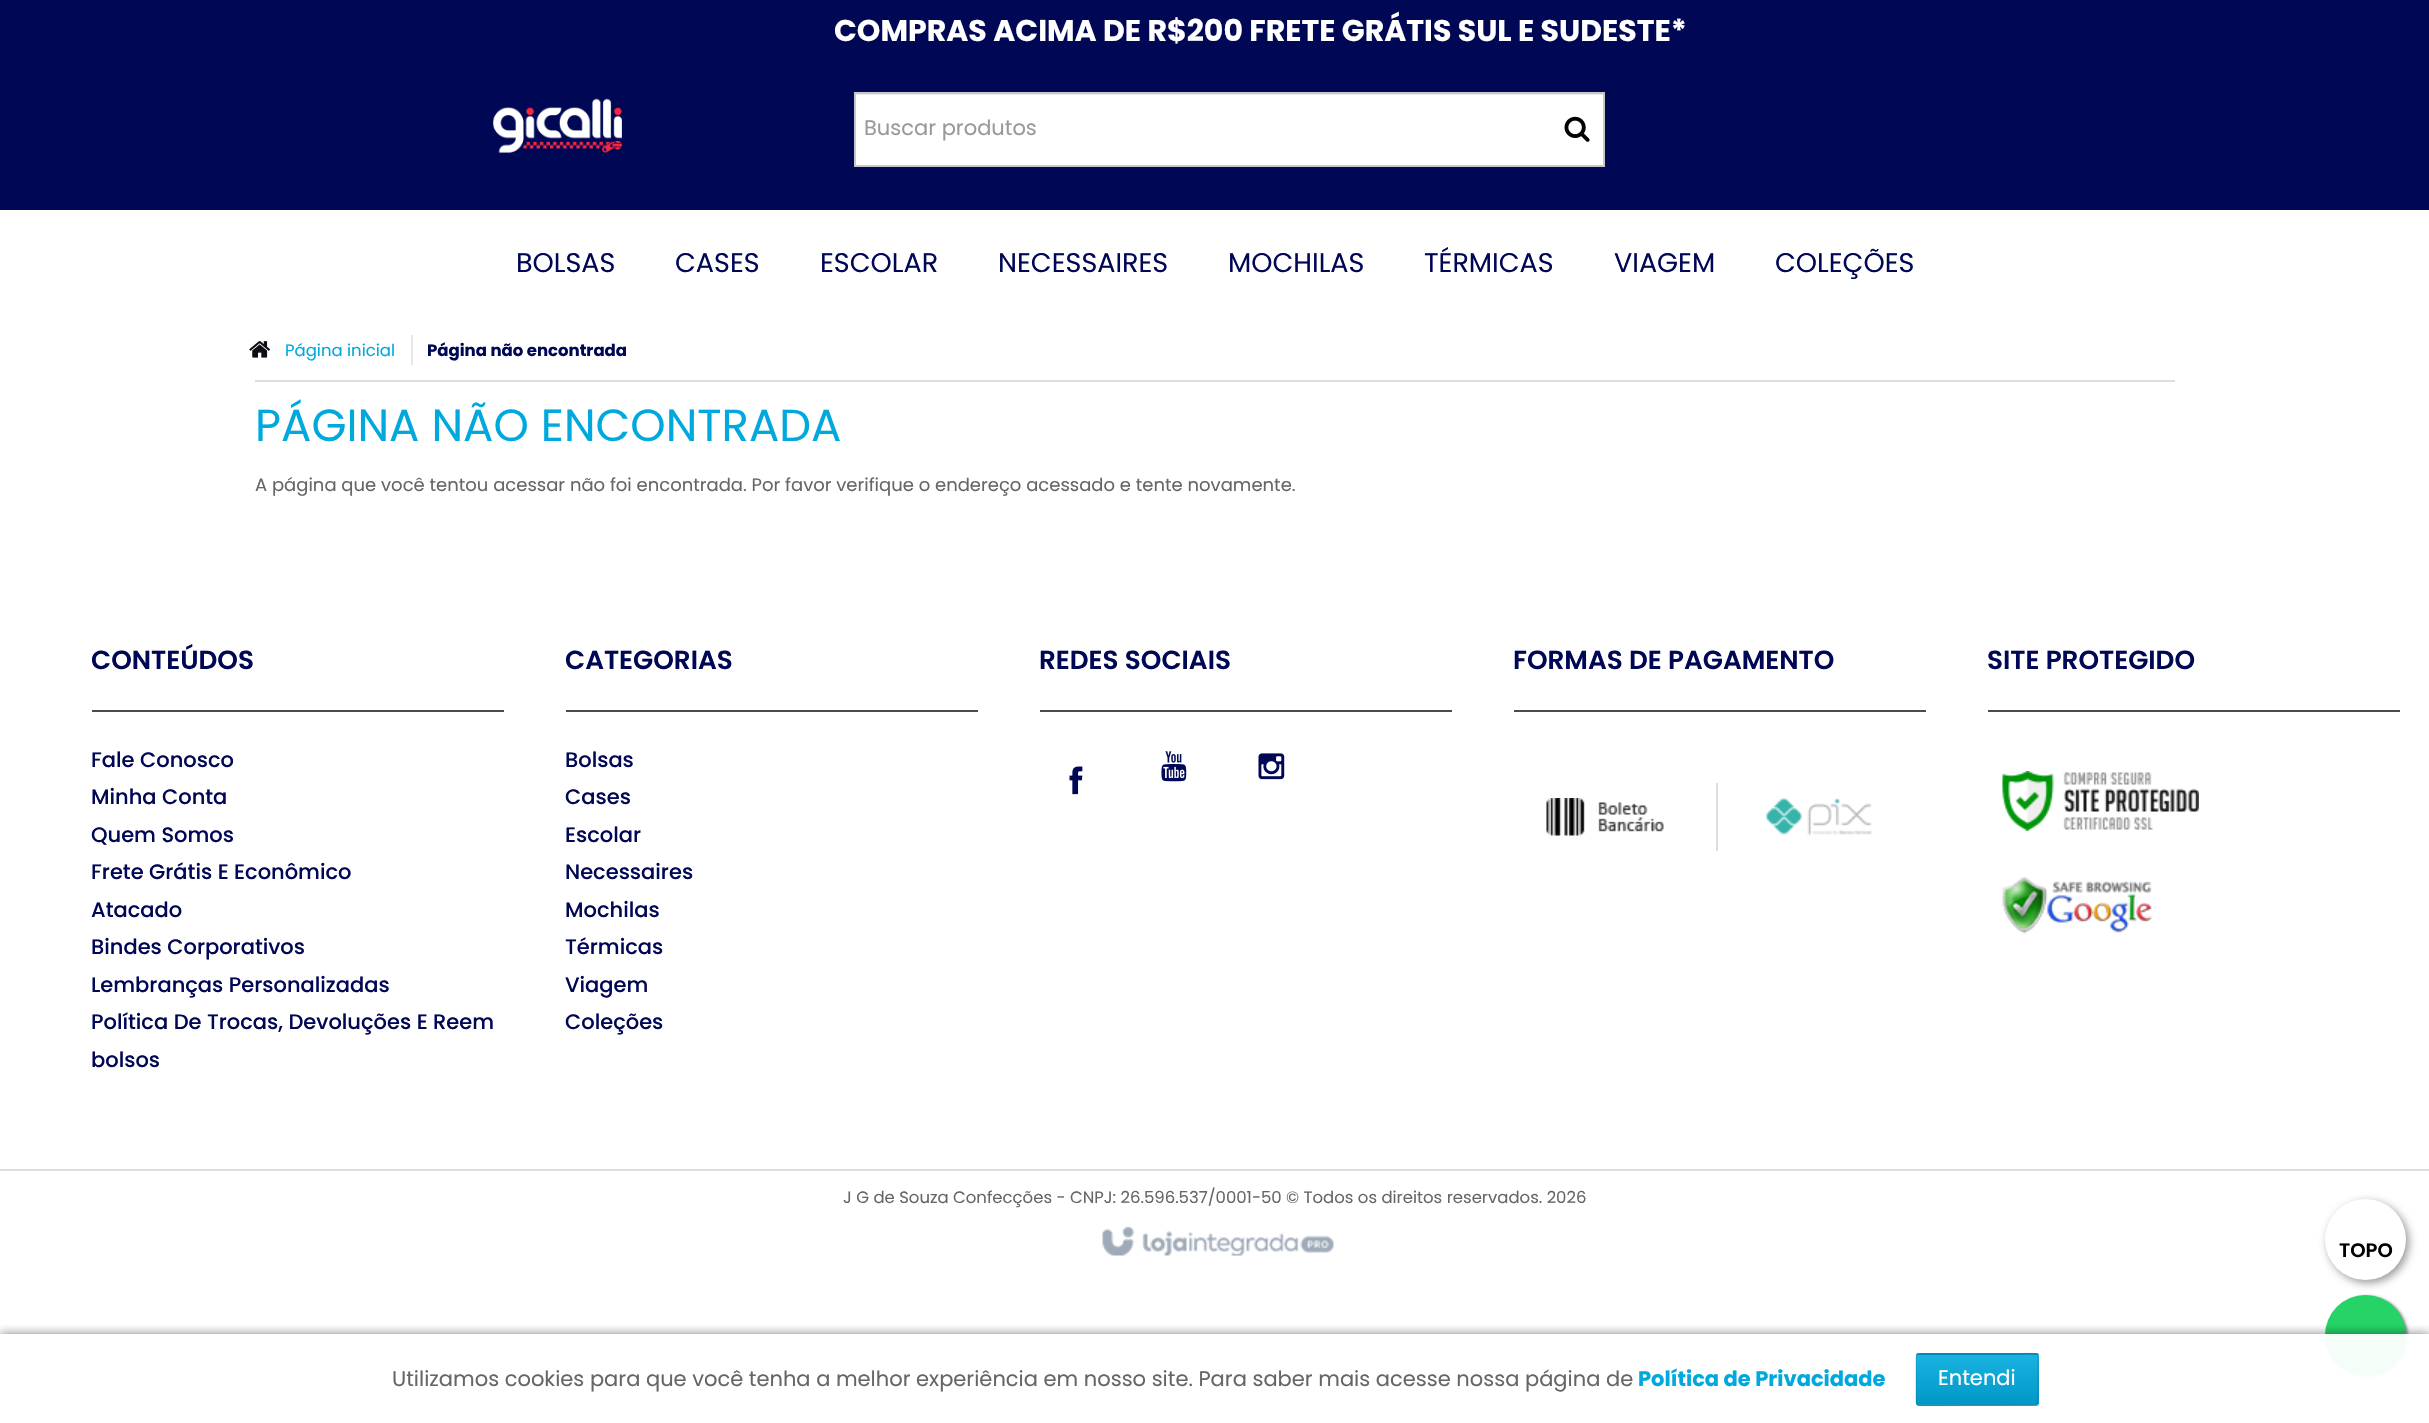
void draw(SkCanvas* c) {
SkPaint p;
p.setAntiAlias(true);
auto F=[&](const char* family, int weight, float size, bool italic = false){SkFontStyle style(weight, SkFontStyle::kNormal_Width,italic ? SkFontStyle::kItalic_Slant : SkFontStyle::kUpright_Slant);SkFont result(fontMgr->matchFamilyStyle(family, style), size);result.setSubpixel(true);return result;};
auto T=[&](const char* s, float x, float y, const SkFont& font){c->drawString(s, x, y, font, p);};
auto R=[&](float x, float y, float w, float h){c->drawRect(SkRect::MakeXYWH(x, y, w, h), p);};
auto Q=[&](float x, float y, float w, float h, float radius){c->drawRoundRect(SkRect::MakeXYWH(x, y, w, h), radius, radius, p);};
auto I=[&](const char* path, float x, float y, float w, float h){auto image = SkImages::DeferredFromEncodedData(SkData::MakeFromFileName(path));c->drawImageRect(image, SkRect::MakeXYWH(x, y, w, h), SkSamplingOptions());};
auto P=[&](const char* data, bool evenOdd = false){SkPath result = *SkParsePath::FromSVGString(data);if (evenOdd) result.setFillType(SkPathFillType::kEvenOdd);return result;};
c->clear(0xffffffff);
p.setColor(0xff000755);
R(0,0,2429,210);
auto f1 = F("Poppins",700,30);
p.setColor(0xffffffff);
T("COMPRAS ACIMA DE R$200 FRETE GRÁTIS SUL E SUDESTE*",834,41,f1);
I("1.png",493,98,129,55);
R(856,95,747,70);
p.setColor(0xffececec);
R(855,94,749,1);
p.setStroke(true);
p.setStrokeWidth(2);
p.setColor(0xffc7c7c7);
c->drawRect(SkRect::MakeXYWH(855,93,749,73),p);
auto f2 = F("Poppins",400,21);
p.setStroke(false);
p.setColor(0xff999999);
T("Buscar produtos",864,135,f2);
I("2.png",1564,116,26,26);
auto f3 = F("Poppins",400,27);
p.setColor(0xff000755);
T("BOLSAS",516,272,f3);
T("CASES",675,272,f3);
T("ESCOLAR",820,272,f3);
T("NECESSAIRES",998,272,f3);
T("MOCHILAS",1228,272,f3);
T("TÉRMICAS",1424,272,f3);
T("VIAGEM",1614,272,f3);
T("COLEÇÕES",1775,272,f3);
p.setColor(0xffdedede);
R(255,380,1920,2);
I("3.png",249,341,21,17);
auto f4 = F("Poppins",400,16.5);
p.setColor(0xff00a9dd);
T("Página inicial",285,356,f4);
p.setColor(0xffe6e6e6);
R(411,335,2,30);
auto f5 = F("Poppins",700,16.5);
p.setColor(0xff000755);
T("Página não encontrada",427,356,f5);
auto f6 = F("Poppins",400,45);
p.setColor(0xff00a9dd);
T("PÁGINA NÃO ENCONTRADA",255,441,f6);
auto f7 = F("Poppins",400,18);
p.setColor(0xff666666);
T("A página que você tentou acessar não foi encontrada. Por favor verifique o endereço acessado e tente novamente.",255,491,f7);
p.setColor(0xff4c4b4b);
R(92,710,412,2);
auto f8 = F("Poppins",600,26.25);
p.setColor(0xff000755);
T("CONTEÚDOS",91,669,f8);
auto f9 = F("Poppins",500,21);
T("Fale Conosco",91,767,f9);
T("Minha Conta",91,804,f9);
T("Quem Somos",91,842,f9);
T("Frete Grátis E Econômico",91,879,f9);
T("Atacado",91,917,f9);
T("Bindes Corporativos",91,954,f9);
T("Lembranças Personalizadas",91,992,f9);
T("Política De Trocas, Devoluções E Reem",91,1029,f9);
T("bolsos",91,1067,f9);
p.setColor(0xff4c4b4b);
R(566,710,412,2);
p.setColor(0xff000755);
T("CATEGORIAS",565,669,f8);
T("Bolsas",565,767,f9);
T("Cases",565,804,f9);
T("Escolar",565,842,f9);
T("Necessaires",565,879,f9);
T("Mochilas",565,917,f9);
T("Térmicas",565,954,f9);
T("Viagem",565,992,f9);
T("Coleções",565,1029,f9);
p.setColor(0xff4c4b4b);
R(1040,710,412,2);
p.setColor(0xff000755);
T("REDES SOCIAIS",1039,669,f8);
I("4.png",1069,766,14,29);
I("5.png",1161,751,26,31);
I("6.png",1258,753,27,27);
p.setColor(0xff4c4b4b);
R(1514,710,412,2);
p.setColor(0xff000755);
T("FORMAS DE PAGAMENTO",1513,669,f8);
I("7.png",1546,798,118,38);
p.setColor(0xffdddddd);
R(1716,783,2,68);
I("8.png",1765,798,107,38);
p.setColor(0xff4c4b4b);
R(1988,710,412,2);
p.setColor(0xff000755);
T("SITE PROTEGIDO",1987,669,f8);
I("9.png",2002,771,197,60);
I("10.png",2002,877,151,57);
p.setColor(0xffdddddd);
R(0,1169,2429,2);
p.setColor(0xff666666);
T("J G de Souza Confecções - CNPJ: 26.596.537/0001-50 © Todos os direitos reservados. 2026",843,1203,f4);
I("11.png",1102,1226,232,30);
p.setColor(0xff888888);
p.setMaskFilter(SkMaskFilter::MakeBlur(kNormal_SkBlurStyle, 1.5));
c->drawRoundRect(SkRect::MakeXYWH(2327,1296,81,81),40.5,40.5,p);
p.setMaskFilter(nullptr);
p.setColor(0x66000000);
p.setMaskFilter(SkMaskFilter::MakeBlur(kNormal_SkBlurStyle, 4.5));
c->drawRoundRect(SkRect::MakeXYWH(2328,1202,81,81),40.5,40.5,p);
p.setMaskFilter(nullptr);
p.setColor(0xff25d366);
c->drawCircle(2365.5,1335.5,40.5,p);
p.setColor(0xffffffff);
c->drawCircle(2365.5,1239.5,40.5,p);
auto f10 = F("Poppins",600,19.5);
p.setColor(0xff000000);
T("TOPO",2339,1257,f10);
c->save();
c->clipRect(SkRect::MakeXYWH(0,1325,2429,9));
p.setColor(0x80000000);
p.setMaskFilter(SkMaskFilter::MakeBlur(kNormal_SkBlurStyle, 5));
c->drawRect(SkRect::MakeXYWH(0,1334,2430,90),p);
p.setMaskFilter(nullptr);
c->restore();
p.setColor(0xf2ffffff);
R(2324,1334,87,46);
p.setColor(0xff666666);
T("Utilizamos cookies para que você tenha a melhor experiência em nosso site. Para saber mais acesse nossa página de",392,1386,f2);
auto f11 = F("Poppins",700,21);
p.setColor(0xff00a9dd);
T("Política de Privacidade",1638,1386,f11);
Q(1916,1353,123,53,3);
{
const SkColor colors[] = {0x1affffff,0x1a000000};
const float stops[] = {0,1};
const SkPoint ends[] = {{1977,1305}, {1977,1355}};
p.setShader(SkGradientShader::MakeLinear(ends, colors, stops, 2, SkTileMode::kClamp));
p.setAlpha(255);
}
R(1916,1353,123,2);
{
const SkColor colors[] = {0x1affffff,0x1a000000};
const float stops[] = {0,1};
const SkPoint ends[] = {{1977,1355}, {1977,1404}};
p.setShader(SkGradientShader::MakeLinear(ends, colors, stops, 2, SkTileMode::kClamp));
p.setAlpha(255);
}
R(1916,1355,123,49);
{
const SkColor colors[] = {0x1affffff,0x1a000000};
const float stops[] = {0,1};
const SkPoint ends[] = {{1977,1404}, {1977,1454}};
p.setShader(SkGradientShader::MakeLinear(ends, colors, stops, 2, SkTileMode::kClamp));
p.setAlpha(255);
}
R(1916,1404,123,2);
p.setStroke(true);
p.setStrokeWidth(1.5);
p.setShader(nullptr);
p.setColor(0x33000000);
c->drawPath(P("M2037 1404l-1.5 .5l-97.5 .5h-19.5l-1.5-1"),p);
p.setColor(0x1a000000);
c->drawPath(P("M1917 1404c-2-1.5-1-21.5-1-25v-15c0-.5-1.5-10 2.5-10h97.5c25.5 0 22-5.5 22 17.5c0 4 1 31-1 32.5"),p);
p.setStroke(false);
p.setColor(0xffffffff);
T("Entendi",1938,1385,f2);
}
